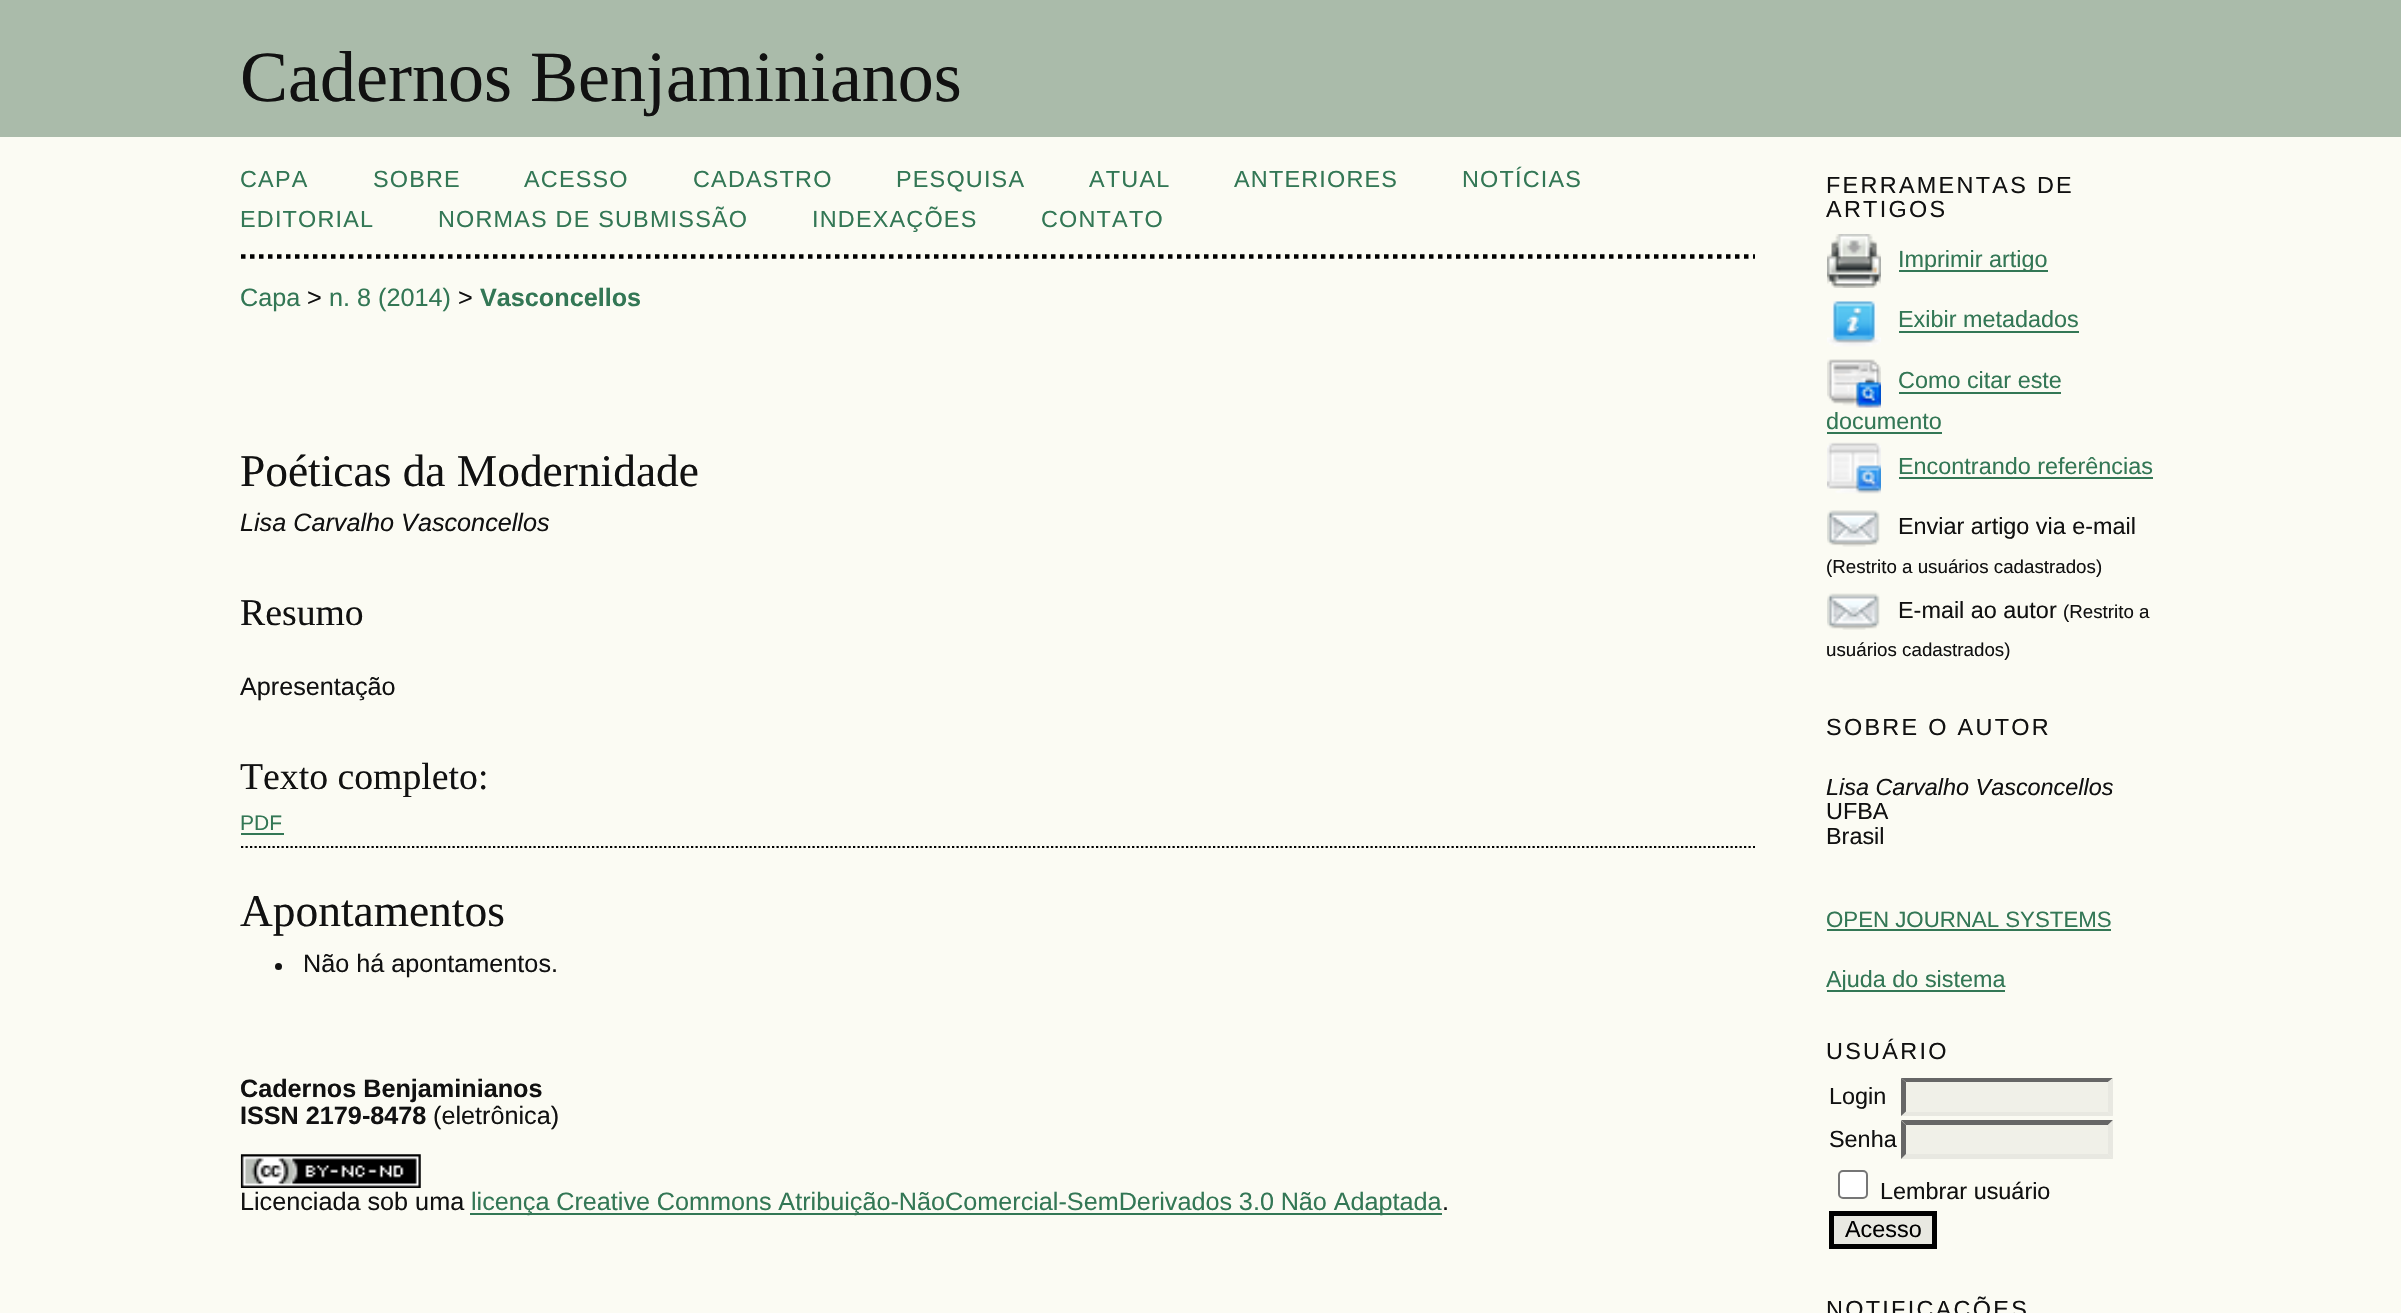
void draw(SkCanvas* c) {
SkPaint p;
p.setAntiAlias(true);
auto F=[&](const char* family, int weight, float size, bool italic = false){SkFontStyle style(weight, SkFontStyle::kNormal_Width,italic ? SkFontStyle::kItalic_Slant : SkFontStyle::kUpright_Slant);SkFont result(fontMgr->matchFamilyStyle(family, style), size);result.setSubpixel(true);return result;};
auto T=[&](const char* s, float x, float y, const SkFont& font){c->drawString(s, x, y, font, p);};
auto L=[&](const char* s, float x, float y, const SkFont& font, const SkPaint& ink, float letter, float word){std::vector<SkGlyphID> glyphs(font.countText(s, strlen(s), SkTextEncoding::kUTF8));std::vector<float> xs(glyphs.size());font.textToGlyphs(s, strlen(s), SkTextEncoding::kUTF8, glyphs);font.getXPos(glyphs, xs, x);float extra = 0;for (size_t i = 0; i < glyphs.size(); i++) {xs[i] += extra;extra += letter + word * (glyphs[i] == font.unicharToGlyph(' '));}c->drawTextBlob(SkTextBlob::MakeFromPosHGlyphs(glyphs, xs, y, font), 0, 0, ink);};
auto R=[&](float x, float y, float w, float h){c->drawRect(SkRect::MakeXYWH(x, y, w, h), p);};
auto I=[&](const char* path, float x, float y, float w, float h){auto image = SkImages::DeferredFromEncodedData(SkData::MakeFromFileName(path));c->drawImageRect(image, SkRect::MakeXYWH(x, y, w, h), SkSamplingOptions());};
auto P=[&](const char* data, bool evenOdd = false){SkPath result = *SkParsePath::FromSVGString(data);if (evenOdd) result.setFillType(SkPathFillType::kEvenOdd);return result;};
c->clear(0xfffbfbf3);
p.setColor(0xffaabbaa);
R(0,0,2401,137);
auto f1 = F("Liberation Serif",400,72);
p.setColor(0xff111111);
T("Cadernos Benjaminianos",240,101,f1);
p.setStroke(true);
p.setStrokeWidth(4.5);
p.setColor(0xff000000);
p.setPathEffect(SkDashPathEffect::Make({{4.5f,4.5f}}, 0));
c->drawPath(P("M241 256.5h1514"),p);
p.setPathEffect(nullptr);
auto f2 = F("Liberation Sans",400,23.4);
p.setStroke(false);
p.setColor(0xff337755);
L("CAPA",240,187,f2,p,1.2,0);
L("SOBRE",373,187,f2,p,1.2,0);
L("ACESSO",524,187,f2,p,1.2,0);
L("CADASTRO",693,187,f2,p,1.2,0);
L("PESQUISA",896,187,f2,p,1.2,0);
L("ATUAL",1089,187,f2,p,1.2,0);
L("ANTERIORES",1234,187,f2,p,1.2,0);
L("NOTÍCIAS",1462,187,f2,p,1.2,0);
L("EDITORIAL",240,227,f2,p,1.2,0);
L("NORMAS DE SUBMISSÃO",438,227,f2,p,1.2,0);
L("INDEXAÇÕES",812,227,f2,p,1.2,0);
L("CONTATO",1041,227,f2,p,1.2,0);
auto f3 = F("Liberation Sans",400,25.2);
T("Capa",240,306,f3);
p.setColor(0xff111111);
T(">",307,306,f3);
p.setColor(0xff337755);
T("n. 8 (2014)",329,306,f3);
p.setColor(0xff111111);
T(">",458,306,f3);
auto f4 = F("Liberation Sans",700,25.2);
p.setColor(0xff337755);
T("Vasconcellos",480,306,f4);
auto f5 = F("Liberation Serif",400,45.4);
p.setColor(0xff111111);
T("Poéticas da Modernidade",240,486,f5);
auto f6 = F("Liberation Sans",400,25.2,true);
T("Lisa Carvalho Vasconcellos",240,531,f6);
auto f7 = F("Liberation Serif",400,37.75);
T("Resumo",240,625,f7);
T("Apresentação",240,695,f3);
T("Texto completo:",240,789,f7);
auto f8 = F("Liberation Sans",400,21);
p.setColor(0xff337755);
T("PDF",240,830,f8);
R(241,833,43,2);
p.setStroke(true);
p.setStrokeWidth(2.2);
p.setColor(0xff000000);
p.setPathEffect(SkDashPathEffect::Make({{2.25f,2.25f}}, 0));
c->drawPath(P("M241 847h1514"),p);
p.setPathEffect(nullptr);
p.setStroke(false);
p.setColor(0xff111111);
T("Apontamentos",240,926,f5);
c->drawCircle(278.5,966.5,3.5,p);
T("Não há apontamentos.",303,972,f3);
T("Cadernos Benjaminianos",240,1097,f4);
T("ISSN 2179-8478",240,1124,f4);
T("(eletrônica)",433,1124,f3);
I("1.png",240,1154,181,34);
T("Licenciada sob uma",240,1210,f3);
p.setColor(0xff337755);
R(470,1213,972,2);
L("licença Creative Commons Atribuição-NãoComercial-SemDerivados 3.0 Não Adaptada",471,1210,f3,p,0,-.25);
p.setColor(0xff111111);
T(".",1442,1210,f3);
L("FERRAMENTAS DE",1826,193,f2,p,2.3,0);
L("ARTIGOS",1826,217,f2,p,2.3,0);
I("2.png",1827,234,54,54);
p.setColor(0xff337755);
R(1899,270,149,2);
T("Imprimir artigo",1898,267,f2);
I("3.png",1827,301,54,46);
T("Exibir metadados",1898,327,f2);
R(1899,331,180,2);
I("4.png",1827,359,54,49);
T("Como citar este",1898,388,f2);
R(1899,392,162,2);
T("documento",1826,429,f2);
R(1827,432,115,2);
I("5.png",1827,442,54,52);
T("Encontrando referências",1898,474,f2);
R(1899,477,254,2);
I("6.png",1827,510,53,37);
p.setColor(0xff111111);
T("Enviar artigo via e-mail",1898,534,f2);
auto f9 = F("Liberation Sans",400,18.75);
T("(Restrito a usuários cadastrados)",1826,573,f9);
I("7.png",1827,593,53,37);
T("E-mail ao autor",1898,618,f2);
T("(Restrito a",2063,618,f9);
T("usuários cadastrados)",1826,656,f9);
L("SOBRE O AUTOR",1826,735,f2,p,2.3,0);
auto f10 = F("Liberation Sans",400,23.4,true);
T("Lisa Carvalho Vasconcellos",1826,795,f10);
T("UFBA",1826,819,f2);
T("Brasil",1826,844,f2);
auto f11 = F("Liberation Sans",400,22.25);
p.setColor(0xff337755);
T("OPEN JOURNAL SYSTEMS",1826,927,f11);
R(1827,929,284,2);
R(1827,990,178,2);
T("Ajuda do sistema",1826,987,f2);
p.setColor(0xff111111);
L("USUÁRIO",1826,1059,f2,p,2.3,0);
T("Login",1829,1104,f2);
p.setColor(0xfff0f0e8);
R(1901,1078,212,38);
p.setColor(0xff666666);
c->drawPath(P("M1901 1078h212l-5 4h-202z"),p);
p.setColor(0xffe8e8e1);
c->drawPath(P("M2113 1078v38l-5-4.5v-29.5z"),p);
c->drawPath(P("M2113 1116h-212l5-4h202z"),p);
p.setColor(0xff666666);
c->drawPath(P("M1901 1116v-38l5 4v29.5z"),p);
p.setColor(0xff111111);
T("Senha",1829,1147,f2);
p.setColor(0xfff0f0e8);
R(1901,1121,212,38);
p.setColor(0xff666666);
c->drawPath(P("M1901 1120h212l-5 5h-202z"),p);
p.setColor(0xffe8e8e1);
c->drawPath(P("M2113 1120.5v38.5l-5-5v-29z"),p);
c->drawPath(P("M2113 1159h-212l5-5h202z"),p);
p.setColor(0xff666666);
c->drawPath(P("M1901 1159v-38.5l5 4.5v29z"),p);
p.setColor(0xffffffff);
c->drawRoundRect(SkRect::MakeXYWH(1839,1171,28,27),4,4,p);
p.setStroke(true);
p.setStrokeWidth(2);
p.setColor(0xff767676);
c->drawRoundRect(SkRect::MakeXYWH(1839,1171,28,27),4,4,p);
p.setStroke(false);
p.setColor(0xff111111);
T("Lembrar usuário",1880,1199,f2);
p.setColor(0xffe8e8e1);
c->drawRect(SkRect::MakeXYWH(1831.5,1213.5,103,33),p);
p.setStroke(true);
p.setStrokeWidth(5);
p.setColor(0xff000000);
c->drawRect(SkRect::MakeXYWH(1831.5,1213.5,103,33),p);
p.setStroke(false);
T("Acesso",1845,1237,f2);
p.setColor(0xff111111);
L("NOTIFICAÇÕES",1826,1317,f2,p,2.3,0);
}
